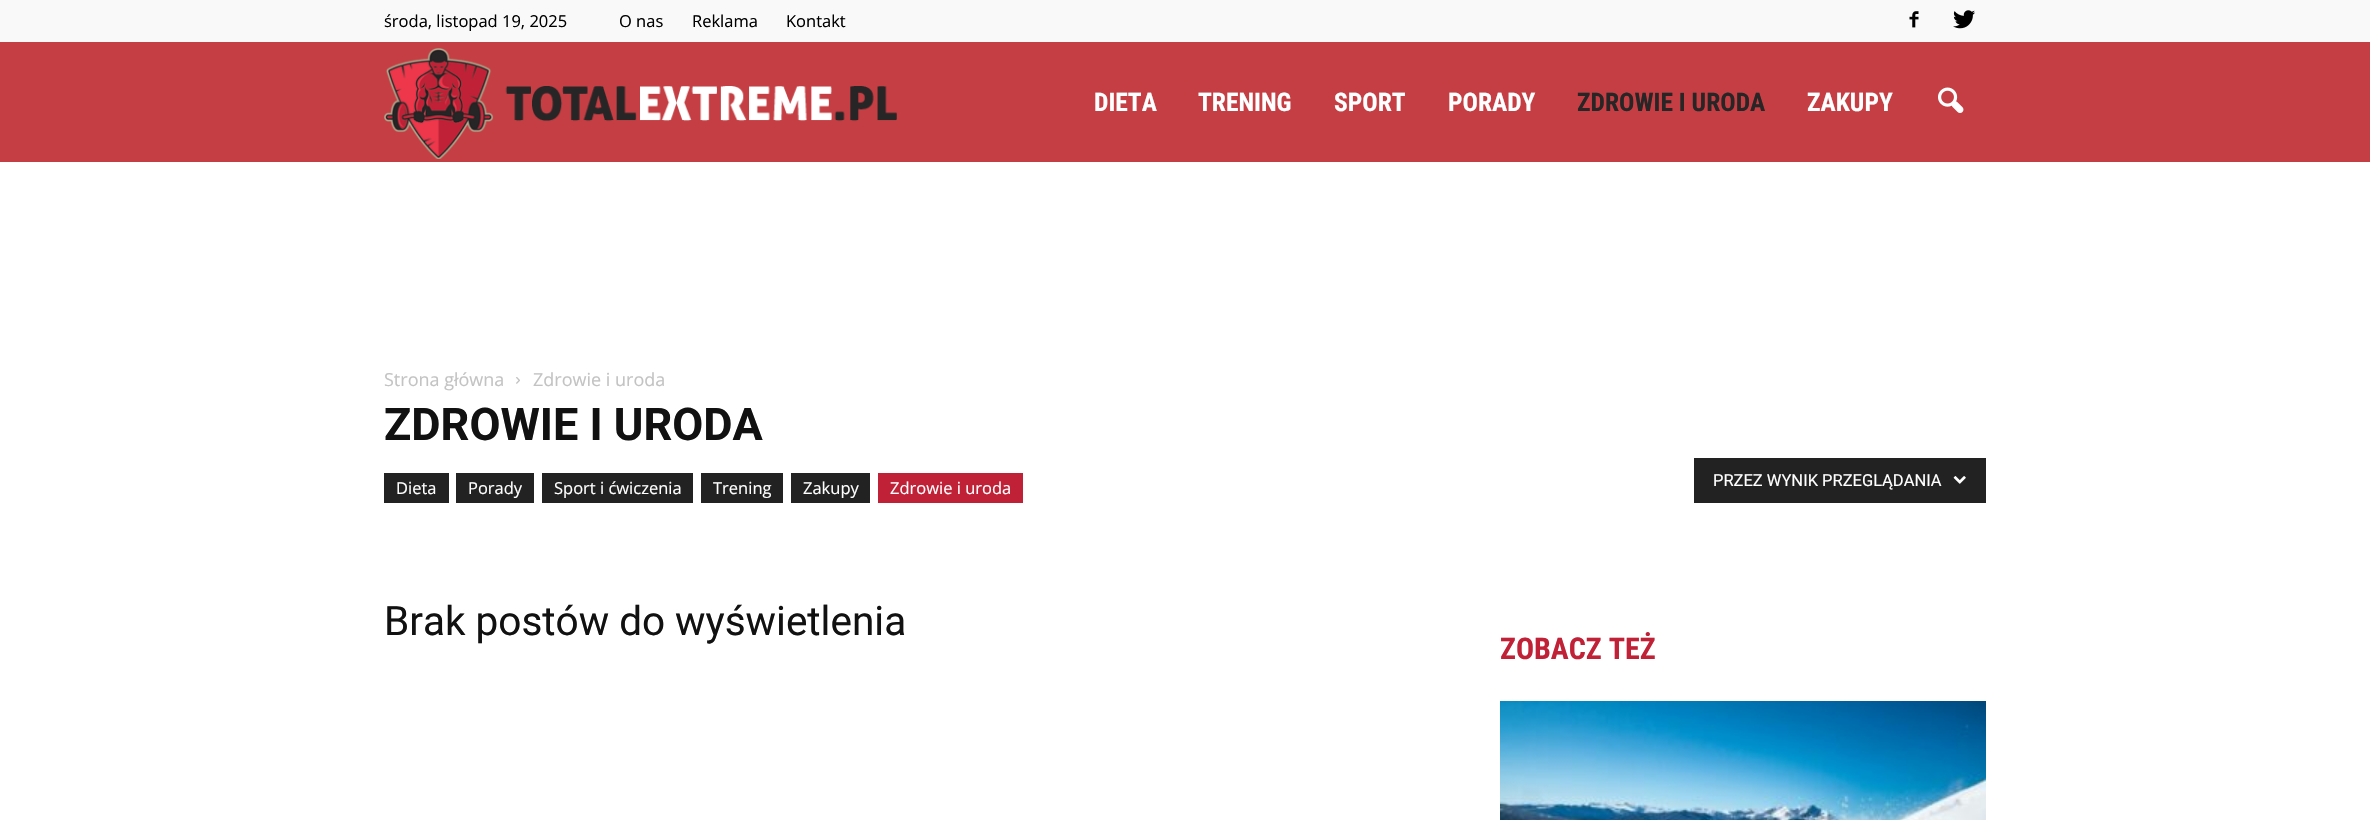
void draw(SkCanvas* c) {
SkPaint p;
p.setAntiAlias(true);
auto F=[&](const char* family, int weight, float size, bool italic = false){SkFontStyle style(weight, SkFontStyle::kNormal_Width,italic ? SkFontStyle::kItalic_Slant : SkFontStyle::kUpright_Slant);SkFont result(fontMgr->matchFamilyStyle(family, style), size);result.setSubpixel(true);return result;};
auto T=[&](const char* s, float x, float y, const SkFont& font){c->drawString(s, x, y, font, p);};
auto R=[&](float x, float y, float w, float h){c->drawRect(SkRect::MakeXYWH(x, y, w, h), p);};
auto I=[&](const char* path, float x, float y, float w, float h){auto image = SkImages::DeferredFromEncodedData(SkData::MakeFromFileName(path));c->drawImageRect(image, SkRect::MakeXYWH(x, y, w, h), SkSamplingOptions());};
c->clear(0xffffffff);
p.setColor(0xfff9f9f9);
R(0,0,2370,42);
auto f1 = F("Open Sans",400,16.5);
p.setColor(0xff000000);
T("środa, listopad 19, 2025",384,27,f1);
T("O nas",619,27,f1);
T("Reklama",692,27,f1);
T("Kontakt",786,27,f1);
I("1.png",1909,11,10,17);
I("2.png",1953,10,22,19);
p.setColor(0xffc43e43);
R(0,42,2370,120);
I("3.png",384,48,513,111);
auto f2 = F("Roboto Condensed",700,25.5);
p.setColor(0xffffffff);
T("DIETA",1094,111,f2);
T("TRENING",1198,111,f2);
T("SPORT",1334,111,f2);
T("PORADY",1448,111,f2);
p.setColor(0xff272526);
T("ZDROWIE I URODA",1577,111,f2);
p.setColor(0xffffffff);
T("ZAKUPY",1807,111,f2);
I("4.png",1938,87,26,26);
auto f3 = F("Open Sans",400,18);
p.setColor(0xffc3c3c3);
T("Strona główna",384,386,f3);
I("5.png",516,377,4,7);
T("Zdrowie i uroda",533,386,f3);
auto f4 = F("Roboto",700,45);
p.setColor(0xff111111);
T("ZDROWIE I URODA",384,440,f4);
p.setColor(0xff222222);
R(384,473,65,30);
p.setColor(0xffffffff);
T("Dieta",396,494,f1);
p.setColor(0xff222222);
R(456,473,78,30);
p.setColor(0xffffffff);
T("Porady",468,494,f1);
p.setColor(0xff222222);
R(542,473,151,30);
p.setColor(0xffffffff);
T("Sport i ćwiczenia",554,494,f1);
p.setColor(0xff222222);
R(701,473,82,30);
p.setColor(0xffffffff);
T("Trening",713,494,f1);
p.setColor(0xff222222);
R(791,473,79,30);
p.setColor(0xffffffff);
T("Zakupy",803,494,f1);
p.setColor(0xffc02137);
R(878,473,145,30);
p.setColor(0xffffffff);
T("Zdrowie i uroda",890,494,f1);
p.setColor(0xff222222);
R(1694,458,292,45);
auto f5 = F("Roboto",400,16.5);
p.setColor(0xffffffff);
T("PRZEZ WYNIK PRZEGLĄDANIA",1713,486,f5);
I("6.png",1953,476,13,8);
auto f6 = F("Roboto",400,40.5);
p.setColor(0xff111111);
T("Brak postów do wyświetlenia",384,635,f6);
auto f7 = F("Roboto Condensed",700,30);
p.setColor(0xffc02137);
T("ZOBACZ TEŻ",1500,659,f7);
I("7.png",1500,701,486,119);
}
